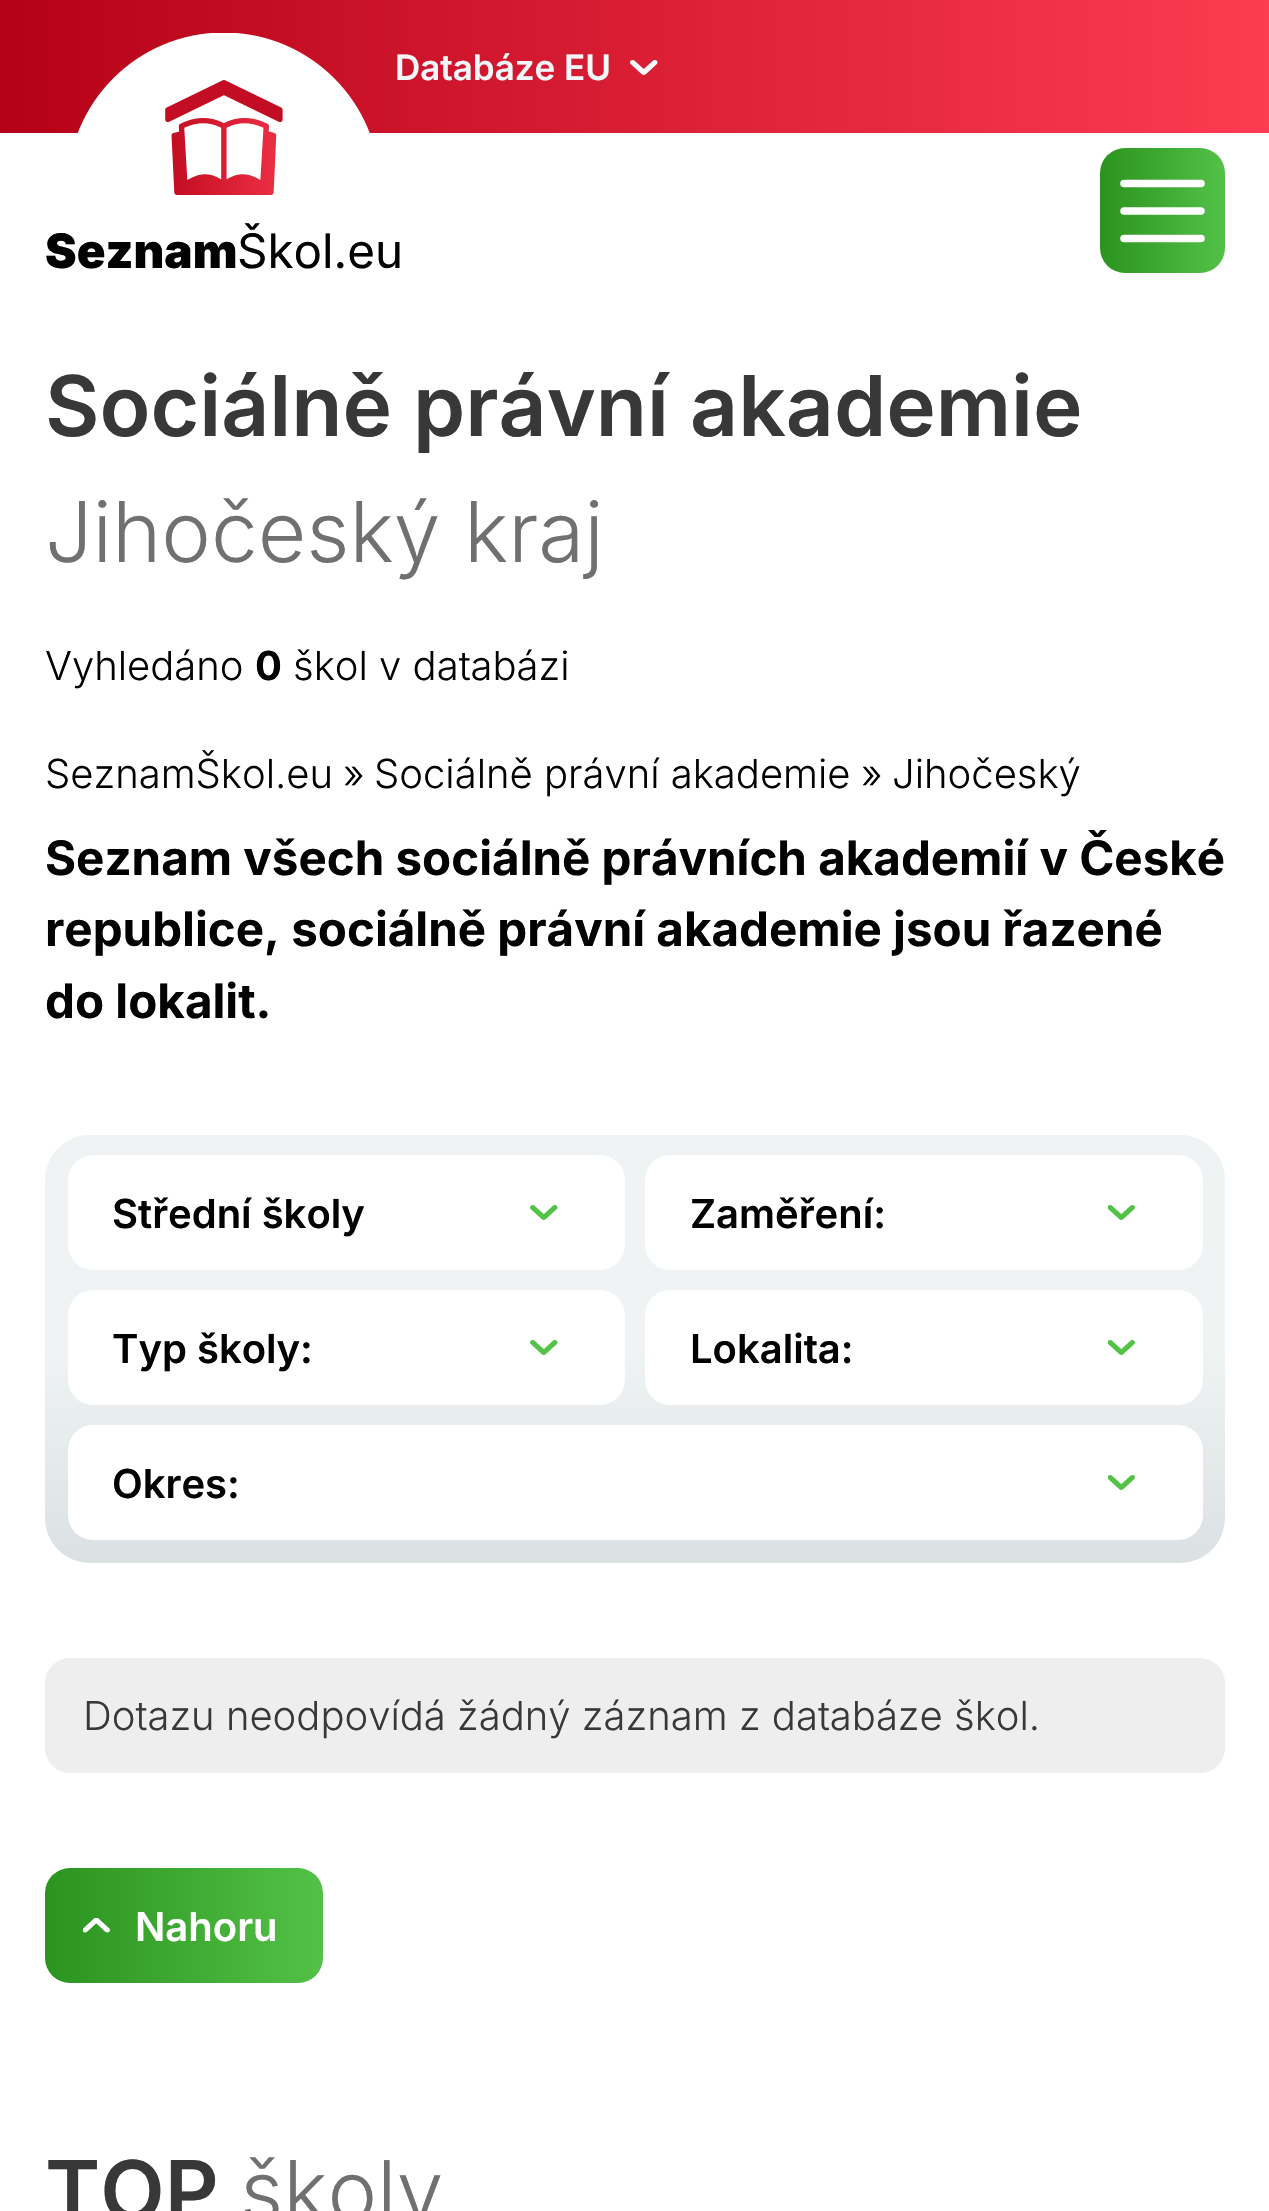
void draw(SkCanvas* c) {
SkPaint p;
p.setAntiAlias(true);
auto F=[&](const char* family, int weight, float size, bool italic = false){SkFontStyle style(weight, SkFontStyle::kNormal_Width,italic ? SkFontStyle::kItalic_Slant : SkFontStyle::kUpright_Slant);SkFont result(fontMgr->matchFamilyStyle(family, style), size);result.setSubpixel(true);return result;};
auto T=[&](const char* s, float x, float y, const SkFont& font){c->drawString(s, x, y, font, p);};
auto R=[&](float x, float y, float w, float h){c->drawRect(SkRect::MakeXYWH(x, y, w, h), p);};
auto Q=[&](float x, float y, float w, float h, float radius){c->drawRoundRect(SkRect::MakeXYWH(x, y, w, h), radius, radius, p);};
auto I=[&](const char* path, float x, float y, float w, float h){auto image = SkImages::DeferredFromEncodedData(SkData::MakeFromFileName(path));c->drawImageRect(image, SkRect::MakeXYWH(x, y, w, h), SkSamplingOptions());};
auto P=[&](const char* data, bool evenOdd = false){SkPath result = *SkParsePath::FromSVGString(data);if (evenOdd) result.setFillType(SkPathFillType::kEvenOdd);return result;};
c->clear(0xffffffff);
{
const SkColor colors[] = {0xffb50117,0xfffd3b51};
const float stops[] = {0,1};
const SkPoint ends[] = {{0,66}, {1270,66}};
p.setShader(SkGradientShader::MakeLinear(ends, colors, stops, 2, SkTileMode::kClamp));
p.setAlpha(255);
}
R(0,0,1269,133);
I("1.png",630,60,28,15);
auto f1 = F("Inter",600,35);
p.setShader(nullptr);
p.setColor(0xfff4f7f9);
T("Databáze EU",395,80,f1);
I("2.png",77,33,293,162);
auto f2 = F("Inter",900,47.5);
p.setColor(0xff020203);
T("Seznam",45,268,f2);
auto f3 = F("Inter",400,47.5);
T("Škol.eu",237,268,f3);
{
const SkColor colors[] = {0xff2b931f,0xff53c147};
const float stops[] = {0,1};
const SkPoint ends[] = {{1100,210}, {1225,210}};
p.setShader(SkGradientShader::MakeLinear(ends, colors, stops, 2, SkTileMode::kClamp));
p.setAlpha(255);
}
Q(1100,148,125,125,25);
p.setStroke(true);
p.setStrokeWidth(7.5);
p.setStrokeCap(SkPaint::kRound_Cap);
p.setShader(nullptr);
p.setColor(0xffffffff);
c->drawPath(P("M1124 238.5h77m-77-27.5h77m-77-27.5h77"),p);
auto f4 = F("Inter",600,83.75);
p.setStroke(false);
p.setColor(0xff383838);
T("Sociálně právní akademie",45,436,f4);
auto f5 = F("Inter",300,83.75);
p.setColor(0xff707070);
T("Jihočeský kraj",45,562,f5);
auto f6 = F("Inter",300,40);
p.setColor(0xff020203);
T("Vyhledáno",45,680,f6);
auto f7 = F("Inter",700,40);
T("0",255,680,f7);
T("škol v databázi",293,680,f6);
T("SeznamŠkol.eu",45,788,f6);
T("»",343,788,f6);
T("Sociálně právní akademie",374,788,f6);
T("»",861,788,f6);
T("Jihočeský",892,788,f6);
auto f8 = F("Inter",700,47.5);
T("Seznam všech sociálně právních akademií v České",45,875,f8);
T("republice, sociálně právní akademie jsou řazené",45,946,f8);
T("do lokalit.",45,1018,f8);
{
const SkColor colors[] = {0xffdbe1e3,0xffeff3f3,0xffeff3f3};
const float stops[] = {0,.5,1};
const SkPoint ends[] = {{635,1563}, {635,1135}};
p.setShader(SkGradientShader::MakeLinear(ends, colors, stops, 3, SkTileMode::kClamp));
p.setAlpha(255);
}
Q(45,1135,1180,428,45);
p.setShader(nullptr);
p.setColor(0xffffffff);
Q(68,1155,557,115,25);
I("3.png",530,1205,28,15);
auto f9 = F("Inter",600,40);
p.setColor(0xff020203);
T("Střední školy",112,1228,f9);
p.setColor(0xffffffff);
Q(645,1155,558,115,25);
I("4.png",1108,1205,27,15);
p.setColor(0xff020203);
T("Zaměření:",690,1228,f9);
p.setColor(0xffffffff);
Q(68,1290,557,115,25);
I("3.png",530,1340,28,15);
p.setColor(0xff020203);
T("Typ školy:",112,1363,f9);
p.setColor(0xffffffff);
Q(645,1290,558,115,25);
I("4.png",1108,1340,27,15);
p.setColor(0xff020203);
T("Lokalita:",690,1363,f9);
p.setColor(0xffffffff);
Q(68,1425,1135,115,25);
I("4.png",1108,1475,27,15);
p.setColor(0xff020203);
T("Okres:",112,1498,f9);
p.setColor(0xffeeeeee);
Q(45,1658,1180,115,25);
p.setColor(0xff383838);
T("Dotazu neodpovídá žádný záznam z databáze škol.",83,1730,f6);
{
const SkColor colors[] = {0xff2b931f,0xff53c147};
const float stops[] = {0,1};
const SkPoint ends[] = {{45,1925}, {323,1925}};
p.setShader(SkGradientShader::MakeLinear(ends, colors, stops, 2, SkTileMode::kClamp));
p.setAlpha(255);
}
Q(45,1868,278,115,25);
I("5.png",83,1918,27,15);
p.setShader(nullptr);
p.setColor(0xffffffff);
T("Nahoru",135,1941,f9);
p.setColor(0xff383838);
T("TOP",45,2221,f4);
p.setColor(0xff707070);
T("školy",240,2221,f5);
}
